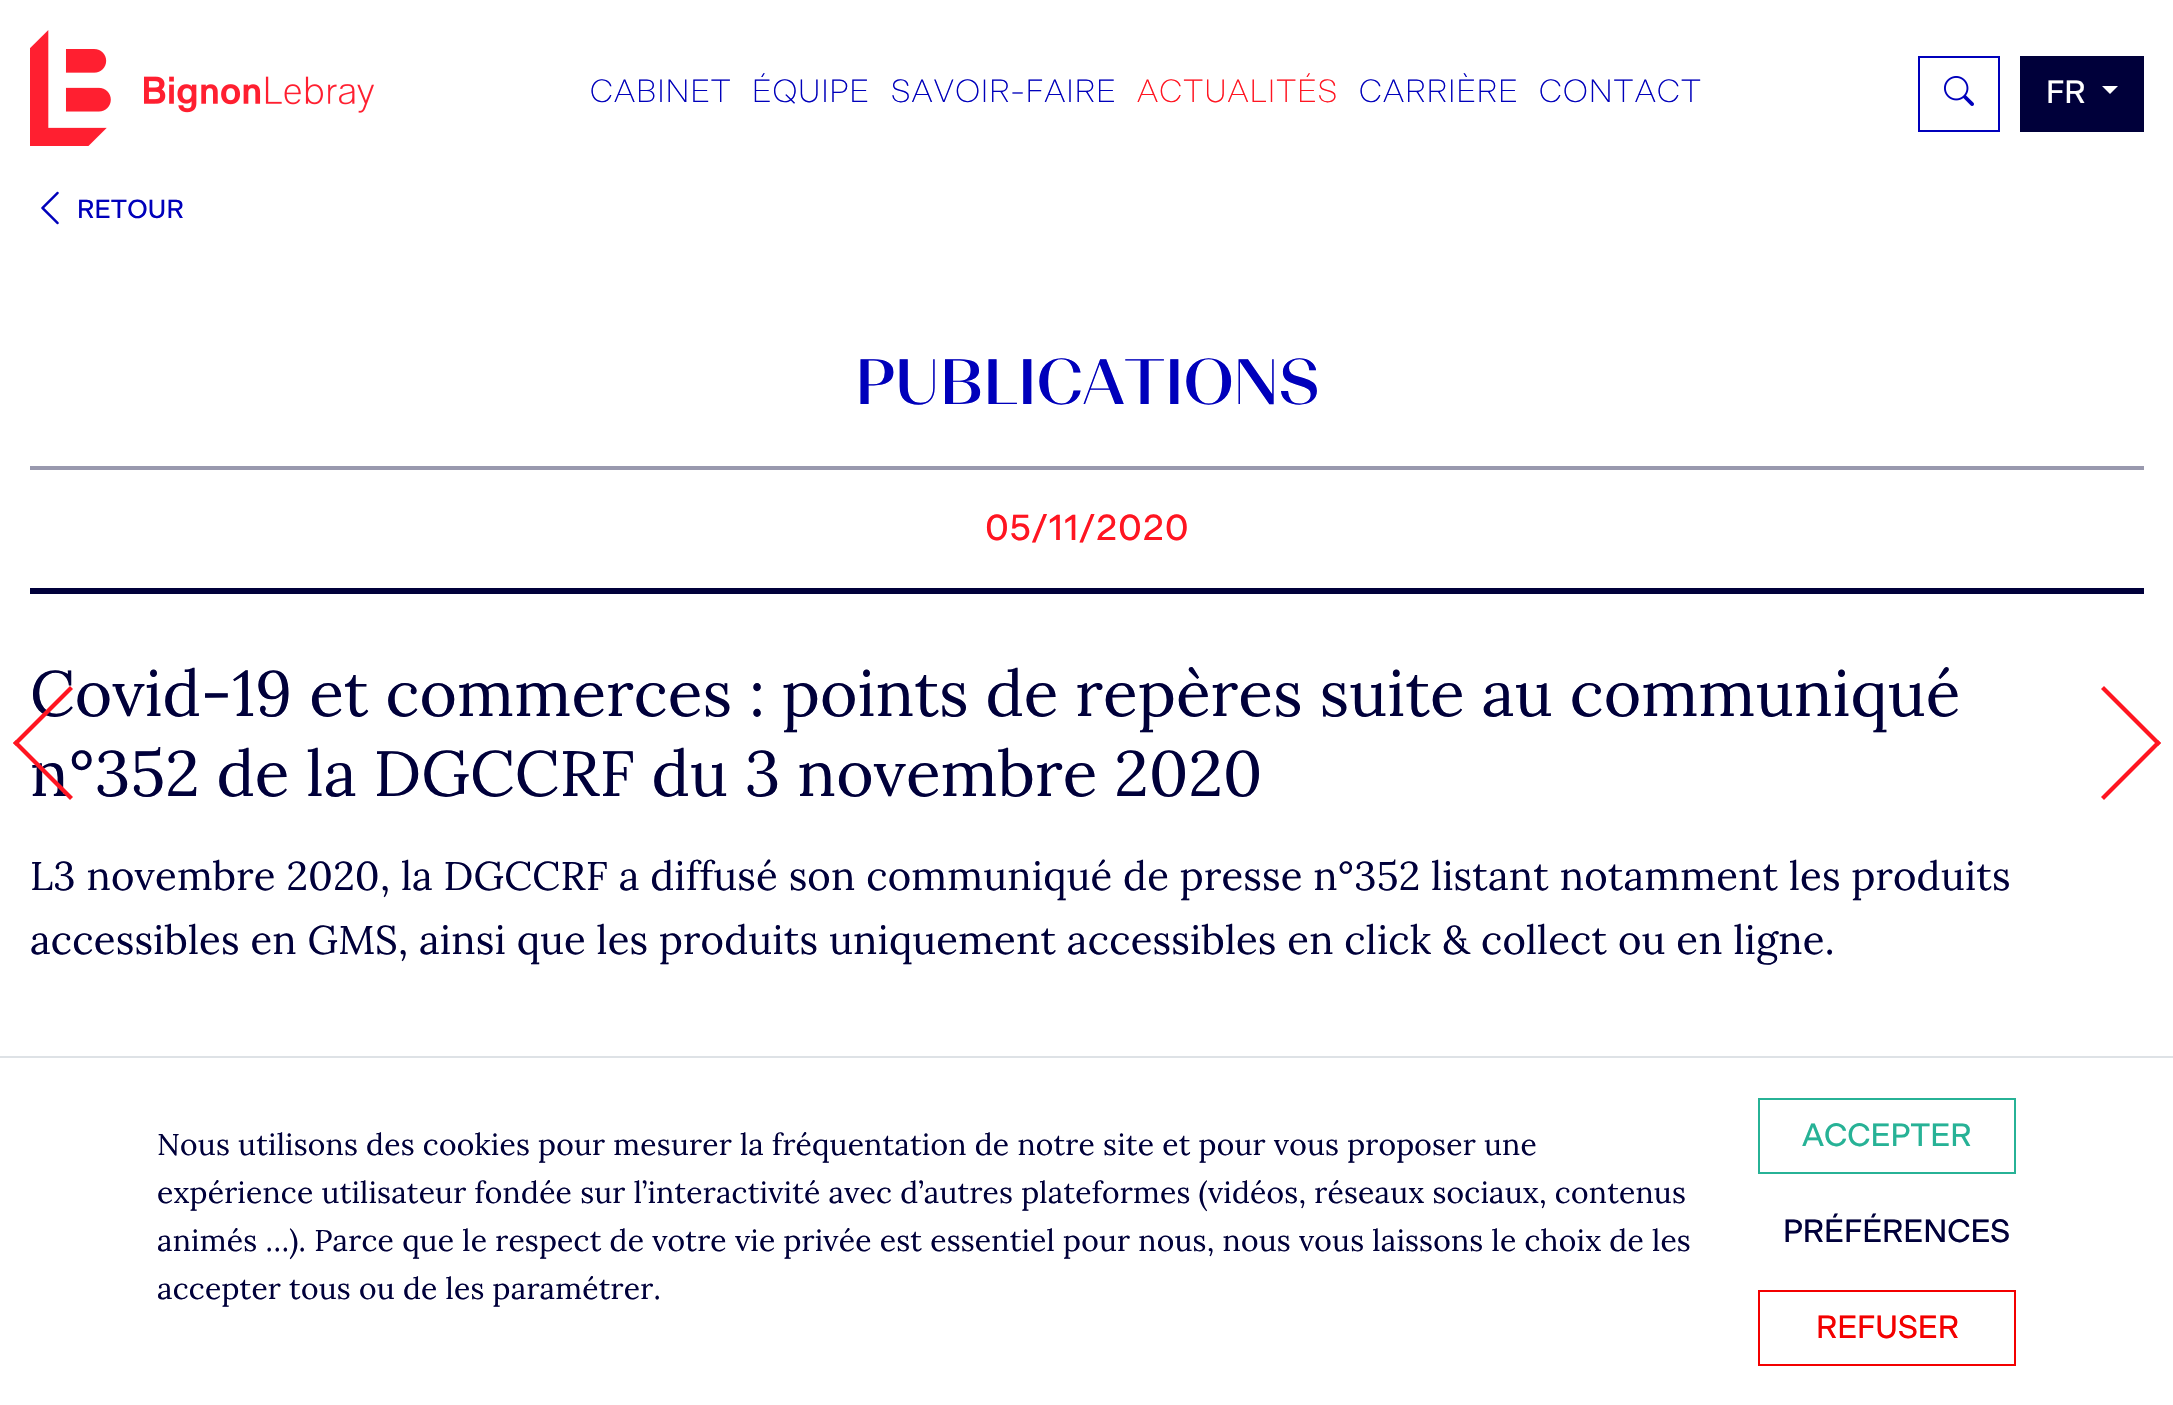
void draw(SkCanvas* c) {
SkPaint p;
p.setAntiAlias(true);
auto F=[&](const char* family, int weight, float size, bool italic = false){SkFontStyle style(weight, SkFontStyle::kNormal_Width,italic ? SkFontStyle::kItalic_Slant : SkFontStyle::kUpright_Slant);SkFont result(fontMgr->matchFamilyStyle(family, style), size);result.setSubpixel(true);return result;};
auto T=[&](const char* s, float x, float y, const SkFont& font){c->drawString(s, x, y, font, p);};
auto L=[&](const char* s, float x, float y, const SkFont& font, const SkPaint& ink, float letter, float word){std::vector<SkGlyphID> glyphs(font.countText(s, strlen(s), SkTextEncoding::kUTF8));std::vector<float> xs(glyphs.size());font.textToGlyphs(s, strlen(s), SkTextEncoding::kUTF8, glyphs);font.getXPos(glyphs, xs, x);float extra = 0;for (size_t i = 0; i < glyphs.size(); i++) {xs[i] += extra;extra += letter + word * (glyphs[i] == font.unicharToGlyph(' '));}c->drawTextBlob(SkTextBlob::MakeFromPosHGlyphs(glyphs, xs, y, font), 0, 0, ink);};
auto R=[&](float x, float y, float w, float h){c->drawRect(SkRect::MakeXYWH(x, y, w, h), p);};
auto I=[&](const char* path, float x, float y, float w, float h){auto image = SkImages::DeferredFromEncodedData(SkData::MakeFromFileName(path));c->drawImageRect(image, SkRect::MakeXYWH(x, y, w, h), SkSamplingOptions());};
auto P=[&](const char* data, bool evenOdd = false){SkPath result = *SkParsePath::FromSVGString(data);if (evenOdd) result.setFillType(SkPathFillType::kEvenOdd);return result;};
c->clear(0xffffffff);
I("1.png",30,30,81,116);
I("2.png",144,76,230,37);
auto f1 = F("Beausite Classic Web",100,32);
p.setColor(0xff0000bb);
L("CABINET",590,102,f1,p,1.25,0);
L("ÉQUIPE",752,102,f1,p,1.25,0);
L("SAVOIR-FAIRE",891,102,f1,p,1.25,0);
p.setColor(0xffff1521);
L("ACTUALITÉS",1137,102,f1,p,1.25,0);
p.setColor(0xff0000bb);
L("CARRIÈRE",1359,102,f1,p,1.25,0);
L("CONTACT",1539,102,f1,p,1.25,0);
p.setStroke(true);
p.setStrokeWidth(2);
c->drawRect(SkRect::MakeXYWH(1919,57,80,74),p);
I("3.png",1944,76,30,30);
p.setStroke(false);
p.setColor(0xff00003a);
R(2020,56,124,76);
auto f2 = F("Beausite Classic Web",400,32);
p.setColor(0xffffffff);
T("FR",2046,103,f2);
c->drawPath(P("M2102 86h16l-8 8z"),p);
I("4.png",41,191,18,34);
auto f3 = F("Beausite Classic Web",400,26);
p.setColor(0xff0000bb);
L("RETOUR",77,218,f3,p,.2,0);
auto f4 = F("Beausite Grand",400,64);
L("PUBLICATIONS",855,404,f4,p,.2,0);
p.setColor(0xff9999ae);
R(30,466,2114,4);
p.setColor(0xff00003a);
R(30,588,2114,6);
auto f5 = F("Beausite Classic Web",400,36);
p.setColor(0xffff1521);
L("05/11/2020",985,540,f5,p,1,0);
auto f6 = F("Lora",400,64);
p.setColor(0xff00003a);
T("Covid-19 et commerces : points de repères suite au communiqué",30,716,f6);
T("n°352 de la DGCCRF du 3 novembre 2020",30,796,f6);
p.setColor(0xffff1521);
c->drawPath(P("M16 740l57 57l-3 3l-57-57z"),p);
c->drawPath(P("M70 686l3 3l-57 57l-3-3z"),p);
c->drawPath(P("M2158 746l-57-57l3-3l57 57z"),p);
c->drawPath(P("M2104 800l-3-3l57-57l3 3z"),p);
auto f7 = F("Lora",400,40);
p.setColor(0xff00003a);
L("L3 novembre 2020, la DGCCRF a diffusé son communiqué de presse n°352 listant notamment les produits",30,890,f7,p,.2,0);
L("accessibles en GMS, ainsi que les produits uniquement accessibles en click & collect ou en ligne.",30,954,f7,p,.2,0);
p.setColor(0xffdee2e6);
R(0,1056,2173,2);
auto f8 = F("Lora",400,30);
p.setColor(0xff00003a);
L("Nous utilisons des cookies pour mesurer la fréquentation de notre site et pour vous proposer une",157,1155,f8,p,.2,0);
L("expérience utilisateur fondée sur l’interactivité avec d’autres plateformes (vidéos, réseaux sociaux, contenus",157,1203,f8,p,.2,0);
L("animés …). Parce que le respect de votre vie privée est essentiel pour nous, nous vous laissons le choix de les",157,1251,f8,p,.2,0);
L("accepter tous ou de les paramétrer.",157,1299,f8,p,.2,0);
p.setStroke(true);
p.setColor(0xff27b296);
c->drawRect(SkRect::MakeXYWH(1759,1099,256,74),p);
p.setStroke(false);
T("ACCEPTER",1802,1146,f2);
p.setColor(0xff00003a);
T("PRÉFÉRENCES",1783,1242,f2);
p.setStroke(true);
p.setColor(0xfff30000);
c->drawRect(SkRect::MakeXYWH(1759,1291,256,74),p);
p.setStroke(false);
T("REFUSER",1816,1338,f2);
}
